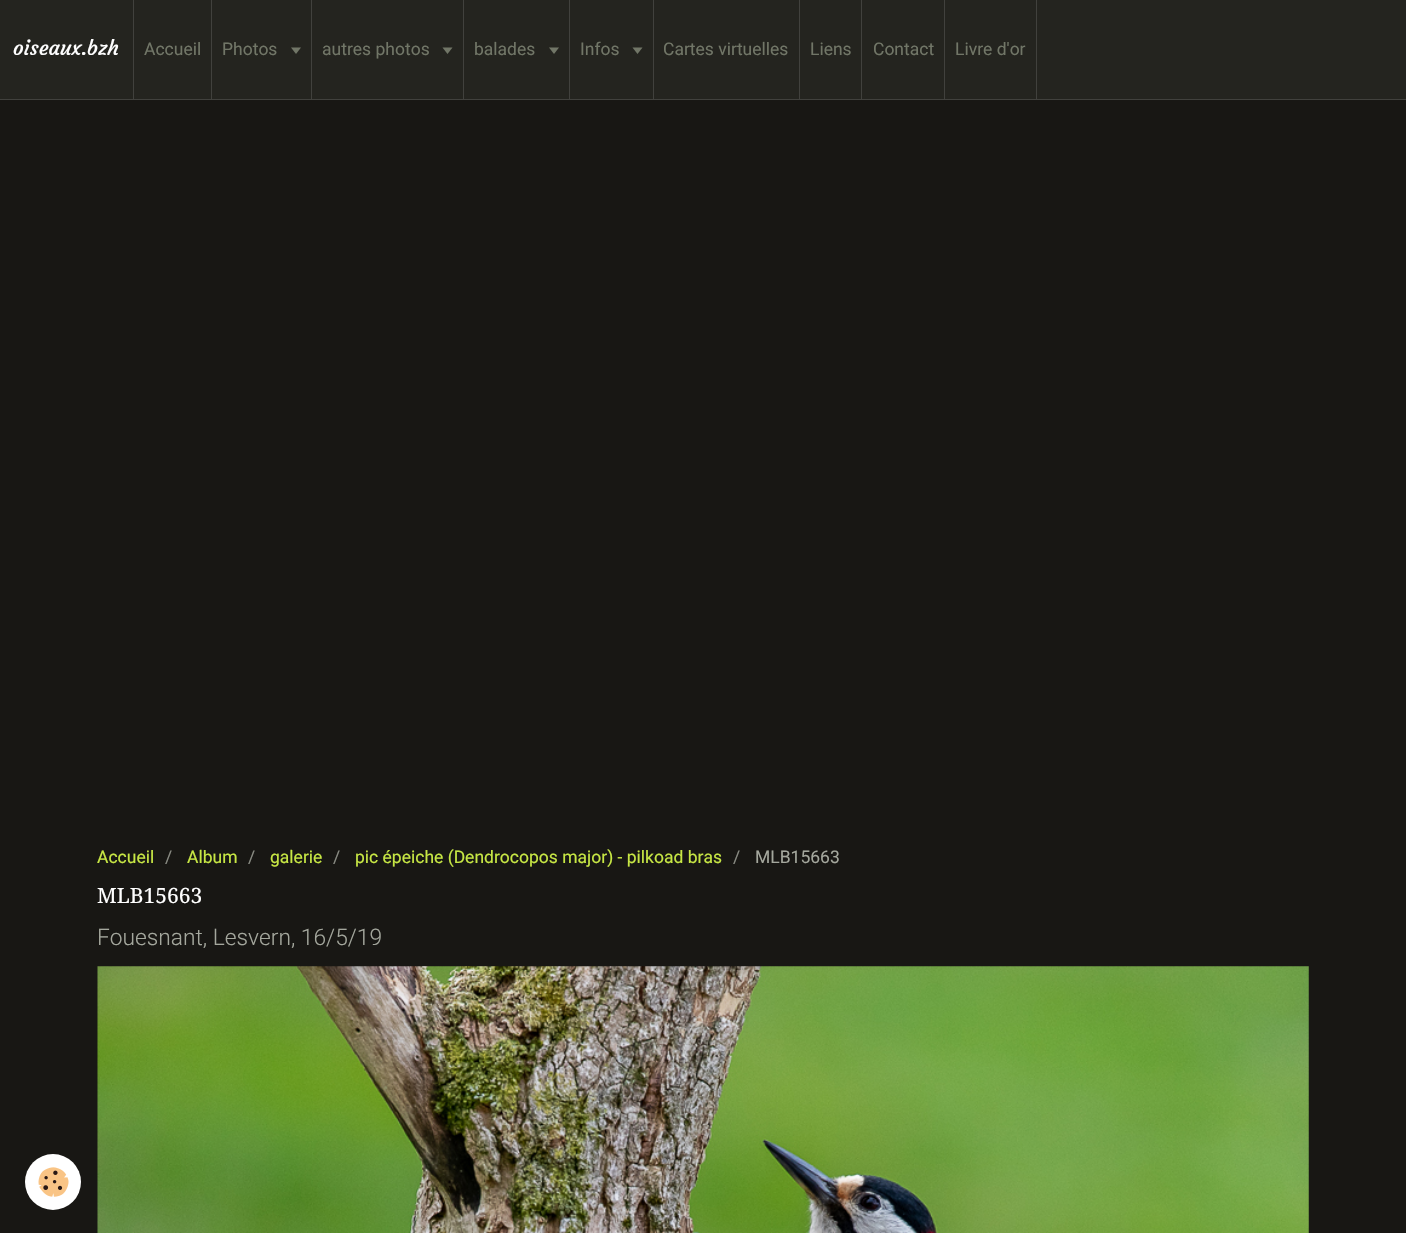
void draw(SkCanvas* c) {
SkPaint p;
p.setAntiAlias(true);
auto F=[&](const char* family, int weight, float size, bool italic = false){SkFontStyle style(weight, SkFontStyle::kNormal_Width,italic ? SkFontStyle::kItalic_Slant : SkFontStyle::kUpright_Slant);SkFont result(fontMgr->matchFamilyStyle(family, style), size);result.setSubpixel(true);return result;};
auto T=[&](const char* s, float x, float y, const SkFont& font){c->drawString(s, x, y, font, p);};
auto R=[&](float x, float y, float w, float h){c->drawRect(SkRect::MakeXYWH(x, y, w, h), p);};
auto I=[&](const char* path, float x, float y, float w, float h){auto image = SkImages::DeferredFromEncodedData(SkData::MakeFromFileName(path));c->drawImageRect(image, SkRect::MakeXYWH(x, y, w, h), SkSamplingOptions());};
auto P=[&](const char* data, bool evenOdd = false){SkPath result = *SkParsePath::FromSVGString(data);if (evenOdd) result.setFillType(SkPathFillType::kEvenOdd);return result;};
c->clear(0xff181714);
p.setColor(0xff24241f);
R(0,0,1406,99);
p.setColor(0xff41413d);
R(0,99,1406,1);
c->save();
c->clipRect(SkRect::MakeXYWH(13,39,106,21));
auto f1 = F("Courgette",400,21);
p.setColor(0xffffffff);
T("oiseaux.bzh",13,55,f1);
c->restore();
p.setColor(0xff41413d);
R(211,0,1,99);
R(133,0,1,99);
auto f2 = F("Roboto",400,17.5);
p.setColor(0xff717667);
T("Accueil",144,55,f2);
p.setColor(0xff41413d);
R(311,0,1,99);
p.setColor(0xff717667);
T("Photos",222,55,f2);
c->drawPath(P("M291 47.5h10l-5 6.5z"),p);
p.setColor(0xff41413d);
R(463,0,1,99);
p.setColor(0xff717667);
T("autres photos",322,55,f2);
c->drawPath(P("M442.5 47.5h10l-5 6.5z"),p);
p.setColor(0xff41413d);
R(569,0,1,99);
p.setColor(0xff717667);
T("balades",474,55,f2);
c->drawPath(P("M549 47.5h10l-5 6.5z"),p);
p.setColor(0xff41413d);
R(653,0,1,99);
p.setColor(0xff717667);
T("Infos",580,55,f2);
c->drawPath(P("M632.5 47.5h10l-5 6.5z"),p);
p.setColor(0xff41413d);
R(799,0,1,99);
p.setColor(0xff717667);
T("Cartes virtuelles",663,55,f2);
p.setColor(0xff41413d);
R(861,0,1,99);
p.setColor(0xff717667);
T("Liens",810,55,f2);
p.setColor(0xff41413d);
R(944,0,1,99);
p.setColor(0xff717667);
T("Contact",873,55,f2);
p.setColor(0xff41413d);
R(1036,0,1,99);
p.setColor(0xff717667);
T("Livre d'or",955,55,f2);
p.setColor(0xffc7e744);
T("Accueil",97,863,f2);
p.setColor(0xff888a82);
T("/",165,863,f2);
p.setColor(0xffc7e744);
T("Album",187,863,f2);
p.setColor(0xff888a82);
T("/",248,863,f2);
p.setColor(0xffc7e744);
T("galerie",270,863,f2);
p.setColor(0xff888a82);
T("/",333,863,f2);
p.setColor(0xffc7e744);
T("pic épeiche (Dendrocopos major) - pilkoad bras",355,863,f2);
p.setColor(0xff888a82);
T("/",733,863,f2);
p.setColor(0xffa4a79d);
T("MLB15663",755,863,f2);
auto f3 = F("Droid Serif",400,21);
p.setColor(0xffffffff);
T("MLB15663",97,903,f3);
auto f4 = F("Roboto",300,22.75);
p.setColor(0xffa4a79d);
T("Fouesnant, Lesvern, 16/5/19",97,945,f4);
I("1.png",97,966,1212,267);
p.setColor(0xffffffff);
c->drawCircle(53,1182,28,p);
I("2.png",38,1167,31,30);
}
